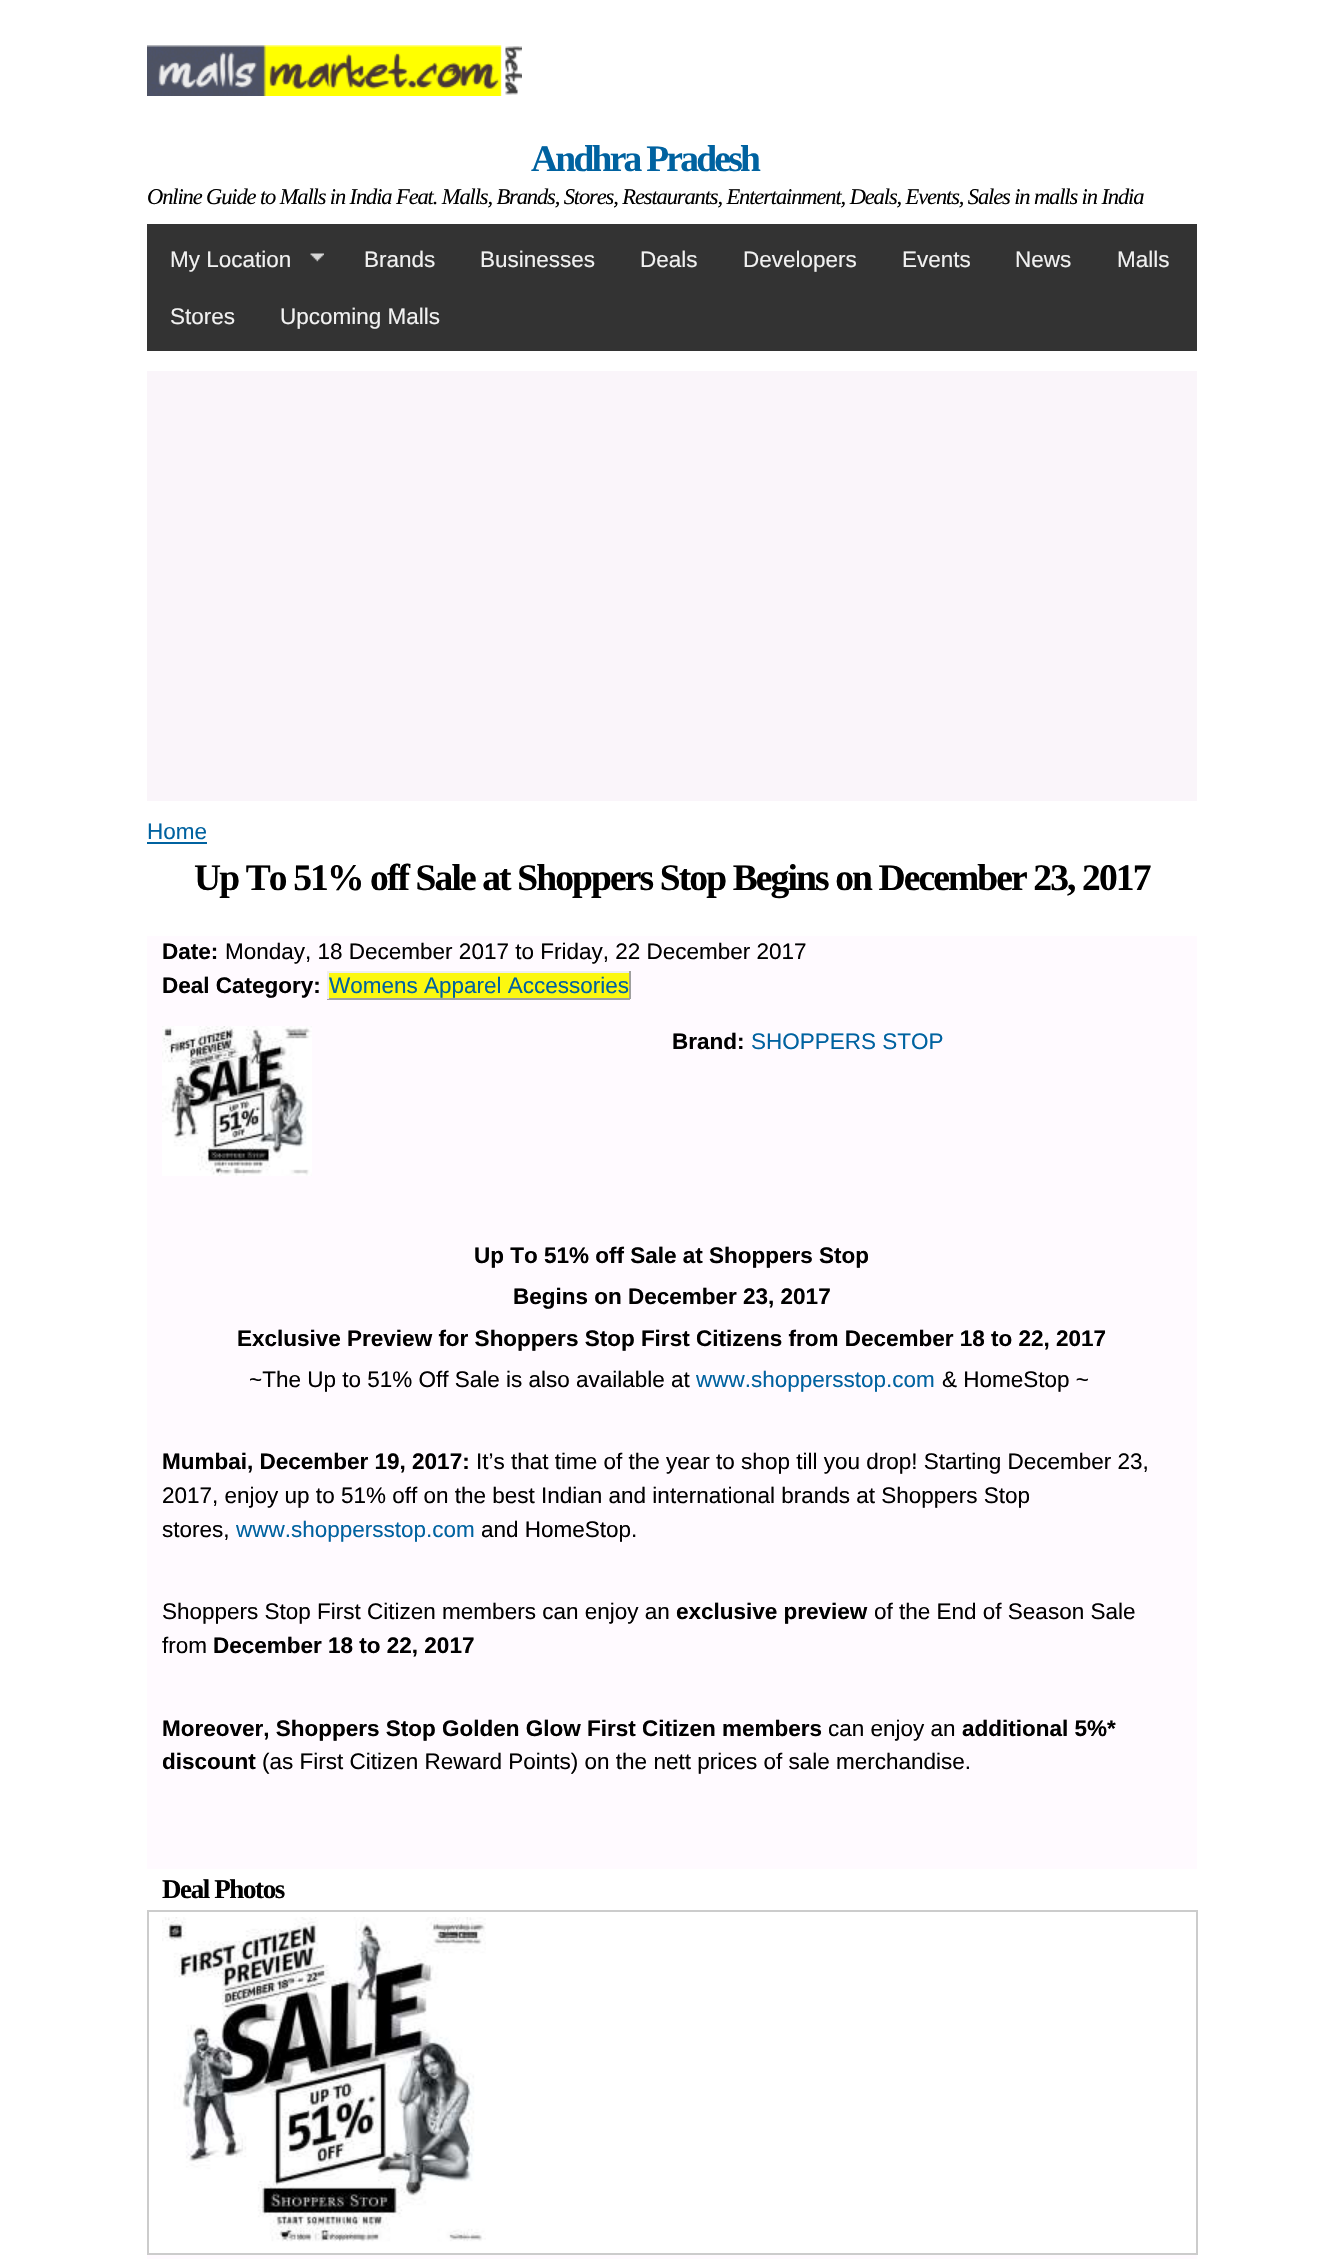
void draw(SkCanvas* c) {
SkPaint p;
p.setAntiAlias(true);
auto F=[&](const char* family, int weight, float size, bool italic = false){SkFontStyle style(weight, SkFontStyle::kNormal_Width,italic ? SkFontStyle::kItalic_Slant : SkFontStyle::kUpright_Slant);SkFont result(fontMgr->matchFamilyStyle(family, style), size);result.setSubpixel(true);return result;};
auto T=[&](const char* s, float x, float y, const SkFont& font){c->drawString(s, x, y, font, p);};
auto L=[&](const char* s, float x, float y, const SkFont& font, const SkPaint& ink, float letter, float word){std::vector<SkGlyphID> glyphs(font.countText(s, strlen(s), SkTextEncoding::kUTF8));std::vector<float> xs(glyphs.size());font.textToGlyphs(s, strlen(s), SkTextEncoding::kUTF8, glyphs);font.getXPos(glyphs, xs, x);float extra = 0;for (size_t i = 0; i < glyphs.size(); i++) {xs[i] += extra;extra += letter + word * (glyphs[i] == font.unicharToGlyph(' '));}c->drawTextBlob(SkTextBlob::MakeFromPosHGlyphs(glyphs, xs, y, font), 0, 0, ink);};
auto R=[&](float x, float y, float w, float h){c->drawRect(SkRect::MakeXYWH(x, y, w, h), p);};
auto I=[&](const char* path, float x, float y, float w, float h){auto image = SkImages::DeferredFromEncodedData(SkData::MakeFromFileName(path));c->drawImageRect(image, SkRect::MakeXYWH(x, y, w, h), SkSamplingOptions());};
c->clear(0xffffffff);
I("1.png",147,45,375,51);
auto f1 = F("Liberation Serif",700,37.5);
p.setColor(0xff0062a0);
L("Andhra Pradesh",531,171,f1,p,-2.75,0);
auto f2 = F("Liberation Serif",400,22.5,true);
p.setColor(0xff000000);
L("Online Guide to Malls in India Feat. Malls, Brands, Stores, Restaurants, Entertainment, Deals, Events, Sales in malls in India",147,204,f2,p,-1.12,0);
p.setColor(0xff333333);
R(147,224,1050,127);
auto f3 = F("Liberation Sans",400,22.5);
p.setColor(0xfff1f1f1);
T("My Location",170,267,f3);
I("2.png",310,253,14,9);
T("Brands",364,267,f3);
T("Businesses",480,267,f3);
T("Deals",640,267,f3);
T("Developers",743,267,f3);
T("Events",902,267,f3);
T("News",1015,267,f3);
T("Malls",1117,267,f3);
T("Stores",170,324,f3);
T("Upcoming Malls",280,324,f3);
p.setColor(0xfffaf5fa);
R(147,371,1050,430);
p.setColor(0xff0062a0);
T("Home",147,839,f3);
R(147,842,60,2);
p.setColor(0xff000000);
L("Up To 51% off Sale at Shoppers Stop Begins on December 23, 2017",194,890,f1,p,-1.88,0);
p.setColor(0xfffffaff);
R(147,936,1050,1323);
auto f4 = F("Liberation Sans",700,22.5);
p.setColor(0xff000000);
T("Date:",162,959,f4);
T("Monday, 18 December 2017 to Friday, 22 December 2017",225,959,f3);
T("Deal Category:",162,993,f4);
p.setColor(0xfffcf80f);
R(329,973,300,25);
p.setColor(0xffeeeeee);
R(327,971,303,2);
p.setColor(0xff9f9f9f);
R(629,971,2,28);
R(327,998,303,2);
p.setColor(0xffeeeeee);
R(327,971,2,28);
p.setColor(0xff0062a0);
T("Womens Apparel Accessories",329,993,f3);
I("3.png",162,1026,150,150);
p.setColor(0xff000000);
T("Brand:",672,1049,f4);
p.setColor(0xff0062a0);
T("SHOPPERS STOP",751,1049,f3);
p.setColor(0xff000000);
T("Up To 51% off Sale at Shoppers Stop",474,1263,f4);
T("Begins on December 23, 2017",513,1304,f4);
T("Exclusive Preview for Shoppers Stop First Citizens from December 18 to 22, 2017",237,1346,f4);
T("~The Up to 51% Off Sale is also available at",249,1387,f3);
p.setColor(0xff0062a0);
T("www.shoppersstop.com",696,1387,f3);
p.setColor(0xff000000);
T("& HomeStop ~",942,1387,f3);
T("Mumbai, December 19, 2017:",162,1469,f4);
T("It’s that time of the year to shop till you drop! Starting December 23,",476,1469,f3);
T("2017, enjoy up to 51% off on the best Indian and international brands at Shoppers Stop",162,1503,f3);
T("stores,",162,1537,f3);
p.setColor(0xff0062a0);
T("www.shoppersstop.com",236,1537,f3);
p.setColor(0xff000000);
T("and HomeStop.",481,1537,f3);
T("Shoppers Stop First Citizen members can enjoy an",162,1619,f3);
T("exclusive preview",676,1619,f4);
T("of the End of Season Sale",874,1619,f3);
T("from",162,1653,f3);
T("December 18 to 22, 2017",213,1653,f4);
T("Moreover, Shoppers Stop Golden Glow First Citizen members",162,1736,f4);
T("can enjoy an",828,1736,f3);
T("additional 5%*",962,1736,f4);
T("discount",162,1769,f4);
T("(as First Citizen Reward Points) on the nett prices of sale merchandise.",262,1769,f3);
p.setColor(0xffffffff);
R(147,1869,1050,41);
auto f5 = F("Liberation Serif",700,27);
p.setColor(0xff000000);
L("Deal Photos",162,1898,f5,p,-1.4,0);
p.setColor(0xffcccccc);
R(147,1910,1050,2);
R(1196,1910,2,345);
R(147,2253,1050,2);
R(147,1910,2,345);
p.setColor(0xffffffff);
R(149,1912,1047,341);
I("4.png",162,1917,324,325);
}
